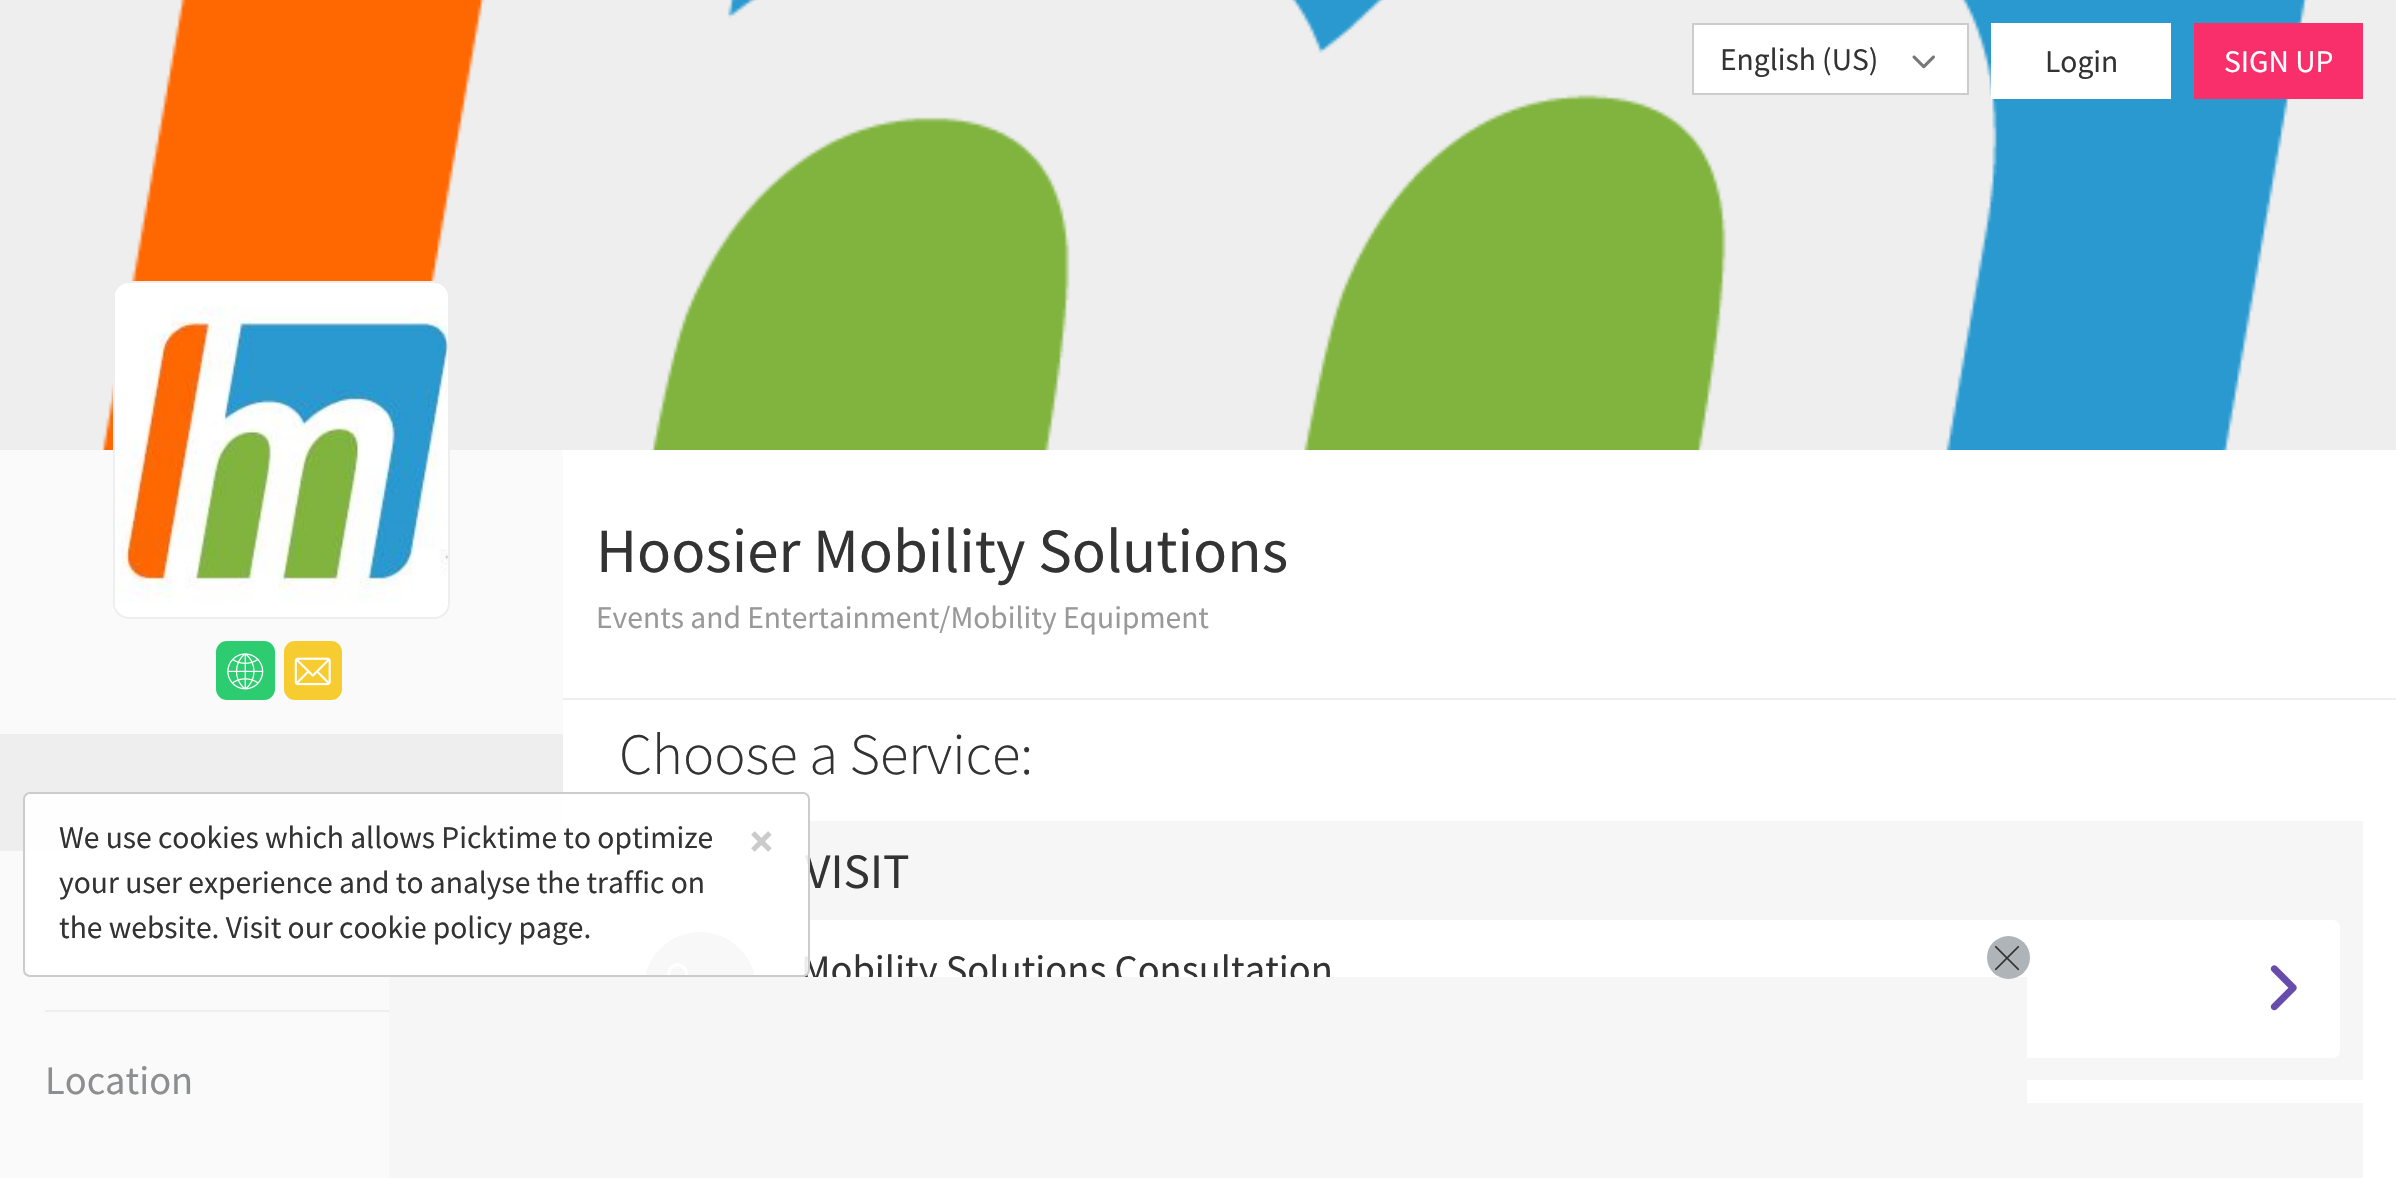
void draw(SkCanvas* c) {
SkPaint p;
p.setAntiAlias(true);
auto F=[&](const char* family, int weight, float size, bool italic = false){SkFontStyle style(weight, SkFontStyle::kNormal_Width,italic ? SkFontStyle::kItalic_Slant : SkFontStyle::kUpright_Slant);SkFont result(fontMgr->matchFamilyStyle(family, style), size);result.setSubpixel(true);return result;};
auto T=[&](const char* s, float x, float y, const SkFont& font){c->drawString(s, x, y, font, p);};
auto R=[&](float x, float y, float w, float h){c->drawRect(SkRect::MakeXYWH(x, y, w, h), p);};
auto Q=[&](float x, float y, float w, float h, float radius){c->drawRoundRect(SkRect::MakeXYWH(x, y, w, h), radius, radius, p);};
auto I=[&](const char* path, float x, float y, float w, float h){auto image = SkImages::DeferredFromEncodedData(SkData::MakeFromFileName(path));c->drawImageRect(image, SkRect::MakeXYWH(x, y, w, h), SkSamplingOptions());};
c->clear(0xfffafafa);
p.setColor(0xffeeeeee);
R(0,0,2396,450);
I("1.png",101,0,2207,450);
p.setColor(0xffffffff);
c->drawRect(SkRect::MakeXYWH(1693,24,275,70),p);
p.setStroke(true);
p.setStrokeWidth(2);
p.setColor(0xffcccccc);
c->drawRect(SkRect::MakeXYWH(1693,24,275,70),p);
auto f1 = F("Source Sans Pro",400,31.5);
p.setStroke(false);
p.setColor(0xff333333);
T("English (US)",1720,70,f1);
I("2.png",1912,55,23,14);
p.setColor(0xffffffff);
R(1991,23,180,76);
p.setColor(0xff333333);
T("Login",2045,72,f1);
p.setColor(0xfff92f6c);
R(2194,23,169,76);
p.setColor(0xffffffff);
T("SIGN UP",2224,72,f1);
c->drawRoundRect(SkRect::MakeXYWH(114,282,335,336),15,15,p);
p.setStroke(true);
p.setColor(0xffeeeeee);
c->drawRoundRect(SkRect::MakeXYWH(114,282,335,336),15,15,p);
I("3.png",115,287,333,323);
p.setStroke(false);
p.setColor(0xffffffff);
R(563,450,1833,728);
p.setColor(0xfff6f6f6);
R(596,821,1767,259);
auto f2 = F("Source Sans Pro",400,49.5);
p.setColor(0xff333333);
T("VISIT",805,888,f2);
p.setColor(0xffffffff);
Q(619,920,1721,138,7);
p.setColor(0xffafb4b8);
c->drawCircle(700,988,56,p);
I("4.png",666,963,60,12);
auto f3 = F("Source Sans Pro",400,40.5);
p.setColor(0xff333333);
T("Mobility Solutions Consultation",801,983,f3);
p.setColor(0xffefeeee);
R(0,734,563,117);
p.setColor(0xe6ffffff);
c->drawRoundRect(SkRect::MakeXYWH(24,793,785,183),6,6,p);
p.setStroke(true);
p.setColor(0xffcccccc);
c->drawRoundRect(SkRect::MakeXYWH(24,793,785,183),6,6,p);
p.setStroke(false);
p.setColor(0xff333333);
T("We use cookies which allows Picktime to optimize",59,848,f1);
auto f4 = F("Source Sans Pro",700,47);
p.setColor(0xffcbcbcb);
T("×",749,857,f4);
p.setColor(0xff333333);
T("your user experience and to analyse the traffic on",59,893,f1);
T("the website. Visit our cookie policy page.",59,938,f1);
p.setColor(0xffeeeeee);
R(563,698,1833,2);
auto f5 = F("Source Sans Pro",400,63);
p.setColor(0xff333333);
T("Hoosier Mobility Solutions",596,572,f5);
p.setColor(0xff999999);
T("Events and Entertainment/Mobility Equipment",596,628,f1);
auto f6 = F("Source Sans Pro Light",300,58.5);
p.setColor(0xff333333);
T("Choose a Service:",619,774,f6);
I("5.png",2270,965,27,46);
p.setColor(0xfff6f6f6);
R(2027,1103,336,75);
p.setColor(0xff2ecc71);
Q(216,641,59,59,11);
I("6.png",227,653,37,37);
p.setColor(0xfff7cc30);
Q(284,641,58,59,11);
I("7.png",294,657,37,29);
p.setColor(0xffeeeeee);
R(45,1010,344,2);
p.setColor(0xff8d8e90);
T("Location",45,1094,f3);
p.setColor(0xfff6f6f6);
R(389,977,1638,201);
p.setColor(0xffafb4b8);
c->drawCircle(2008.5,957.5,21.5,p);
I("8.png",1994,945,26,26);
}
